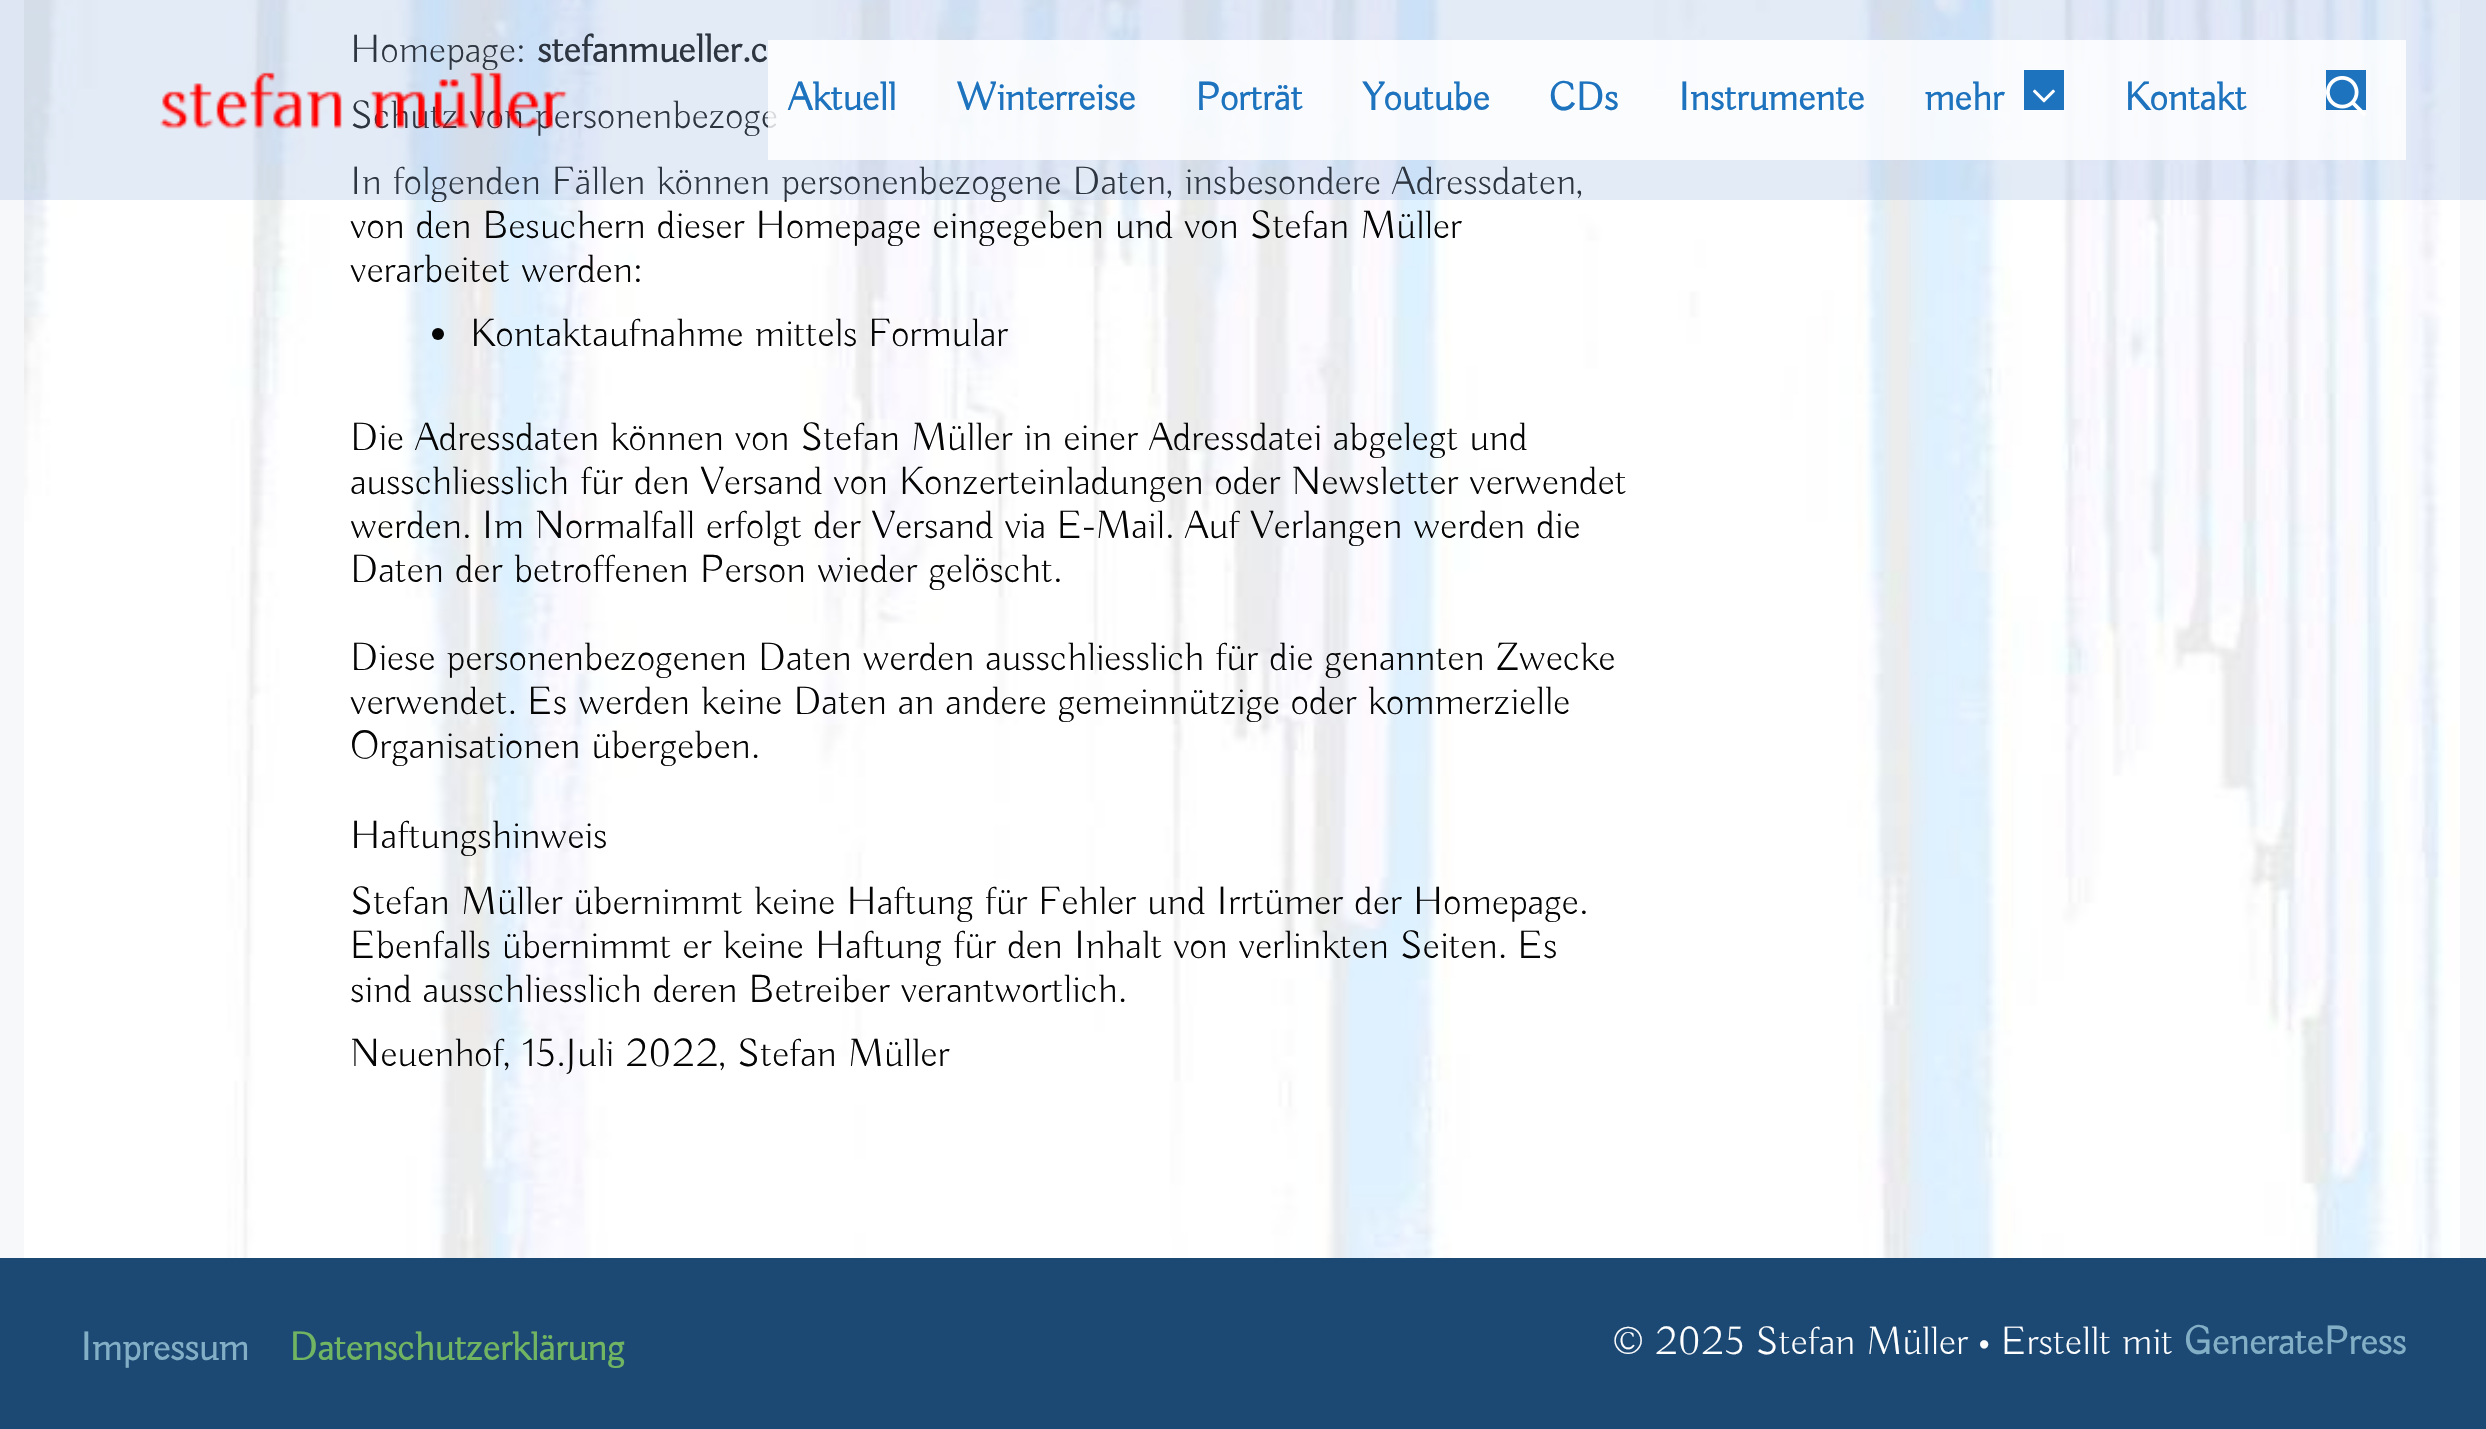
void draw(SkCanvas* c) {
SkPaint p;
p.setAntiAlias(true);
auto F=[&](const char* family, int weight, float size, bool italic = false){SkFontStyle style(weight, SkFontStyle::kNormal_Width,italic ? SkFontStyle::kItalic_Slant : SkFontStyle::kUpright_Slant);SkFont result(fontMgr->matchFamilyStyle(family, style), size);result.setSubpixel(true);return result;};
auto T=[&](const char* s, float x, float y, const SkFont& font){c->drawString(s, x, y, font, p);};
auto R=[&](float x, float y, float w, float h){c->drawRect(SkRect::MakeXYWH(x, y, w, h), p);};
auto I=[&](const char* path, float x, float y, float w, float h){auto image = SkImages::DeferredFromEncodedData(SkData::MakeFromFileName(path));c->drawImageRect(image, SkRect::MakeXYWH(x, y, w, h), SkSamplingOptions());};
c->clear(0xfff7f8f9);
I("1.png",24,0,2436,1258);
auto f1 = F("Buda",300,40);
p.setColor(0xff050505);
T("Homepage:",350,62,f1);
auto f2 = F("Buda",700,40);
T("stefanmueller.c",537,62,f2);
T("Schutz von personenbezoge",350,128,f1);
T("In folgenden Fällen können personenbezogene Daten, insbesondere Adressdaten,",350,194,f1);
T("von den Besuchern dieser Homepage eingegeben und von Stefan Müller",350,238,f1);
T("verarbeitet werden:",350,282,f1);
c->drawCircle(438,334,6,p);
T("Kontaktaufnahme mittels Formular",470,346,f1);
T("Die Adressdaten können von Stefan Müller in einer Adressdatei abgelegt und",350,450,f1);
T("ausschliesslich für den Versand von Konzerteinladungen oder Newsletter verwendet",350,494,f1);
T("werden. Im Normalfall erfolgt der Versand via E-Mail. Auf Verlangen werden die",350,538,f1);
T("Daten der betroffenen Person wieder gelöscht.",350,582,f1);
T("Diese personenbezogenen Daten werden ausschliesslich für die genannten Zwecke",350,670,f1);
T("verwendet. Es werden keine Daten an andere gemeinnützige oder kommerzielle",350,714,f1);
T("Organisationen übergeben.",350,758,f1);
T("Haftungshinweis",350,848,f1);
T("Stefan Müller übernimmt keine Haftung für Fehler und Irrtümer der Homepage.",350,914,f1);
T("Ebenfalls übernimmt er keine Haftung für den Inhalt von verlinkten Seiten. Es",350,958,f1);
T("sind ausschliesslich deren Betreiber verantwortlich.",350,1002,f1);
T("Neuenhof, 15.Juli 2022, Stefan Müller",350,1066,f1);
p.setColor(0x4596b6e3);
R(0,0,2486,200);
I("2.png",160,72,408,57);
p.setColor(0xcfffffff);
R(768,40,1638,120);
p.setColor(0xff1e73be);
T("Aktuell",788,110,f2);
T("Winterreise",956,110,f2);
T("Porträt",1195,110,f2);
T("Youtube",1363,110,f2);
T("CDs",1549,110,f2);
T("Instrumente",1678,110,f2);
T("mehr",1924,110,f2);
R(2024,70,40,40);
I("3.png",2033,89,22,14);
T("Kontakt",2124,110,f2);
R(2326,70,40,40);
I("4.png",2326,76,40,40);
p.setColor(0xff1c4874);
R(0,1258,2486,171);
p.setColor(0xff82aec6);
T("Impressum",80,1360,f2);
p.setColor(0xff71b562);
T("Datenschutzerklärung",289,1360,f2);
p.setColor(0xffffffff);
T("© 2025 Stefan Müller • Erstellt mit",1613,1354,f1);
p.setColor(0xff82aec6);
T("GeneratePress",2184,1354,f2);
}
